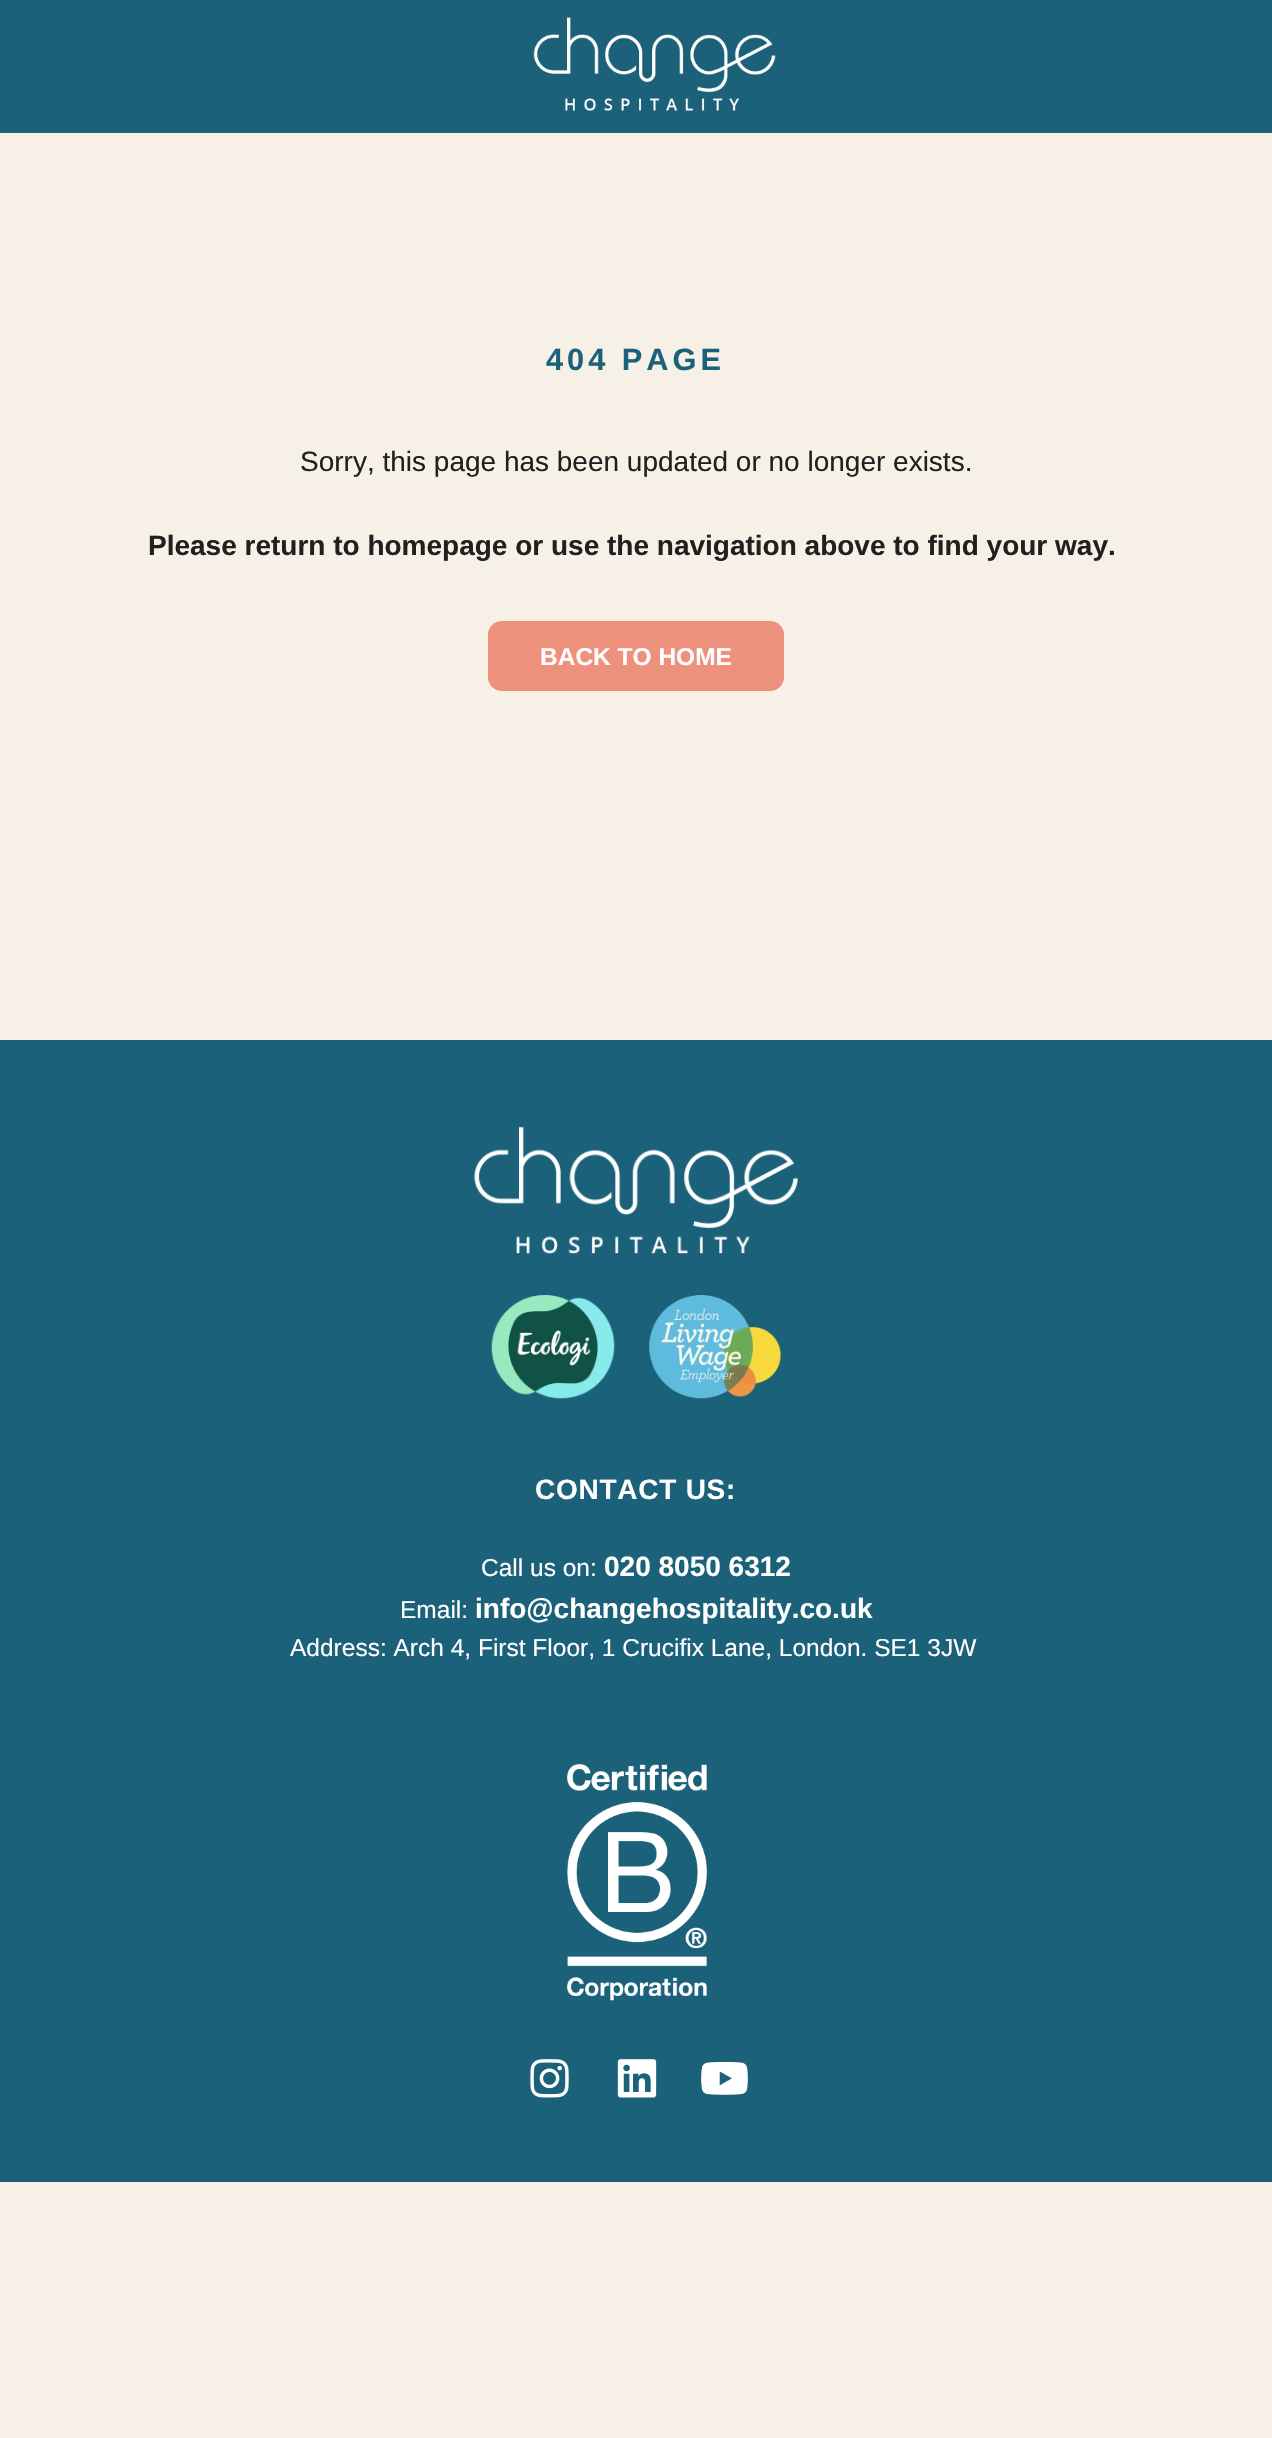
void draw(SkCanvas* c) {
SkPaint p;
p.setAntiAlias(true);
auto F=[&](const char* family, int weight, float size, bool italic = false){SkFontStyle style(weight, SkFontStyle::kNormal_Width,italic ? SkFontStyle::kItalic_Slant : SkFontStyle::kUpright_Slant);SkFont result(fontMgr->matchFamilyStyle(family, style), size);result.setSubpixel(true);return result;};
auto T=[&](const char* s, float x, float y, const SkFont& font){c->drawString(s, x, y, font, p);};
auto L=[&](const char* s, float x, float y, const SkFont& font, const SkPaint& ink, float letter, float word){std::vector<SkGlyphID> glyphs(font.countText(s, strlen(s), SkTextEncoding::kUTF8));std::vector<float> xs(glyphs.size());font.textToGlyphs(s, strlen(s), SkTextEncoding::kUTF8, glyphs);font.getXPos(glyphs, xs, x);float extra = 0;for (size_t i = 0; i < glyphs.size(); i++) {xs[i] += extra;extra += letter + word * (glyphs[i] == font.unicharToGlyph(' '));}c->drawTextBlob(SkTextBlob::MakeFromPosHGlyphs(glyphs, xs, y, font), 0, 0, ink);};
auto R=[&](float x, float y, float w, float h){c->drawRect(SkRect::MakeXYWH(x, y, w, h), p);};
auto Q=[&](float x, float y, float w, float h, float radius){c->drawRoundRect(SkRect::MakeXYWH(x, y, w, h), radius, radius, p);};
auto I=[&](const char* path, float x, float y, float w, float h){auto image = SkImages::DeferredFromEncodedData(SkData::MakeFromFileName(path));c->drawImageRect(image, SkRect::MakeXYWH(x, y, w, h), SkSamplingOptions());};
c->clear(0xfff7f0e6);
p.setColor(0xff1c617a);
R(0,0,1272,133);
I("1.png",533,17,243,94);
auto f1 = F("Liberation Sans",700,30.75);
L("404 PAGE",546,370,f1,p,4,0);
auto f2 = F("Liberation Sans",400,28);
p.setColor(0xff202020);
T("Sorry, this page has been updated or no longer exists.",300,471,f2);
auto f3 = F("Liberation Sans",700,28);
T("Please return to homepage or use the navigation above to find your way.",148,555,f3);
p.setColor(0xffed917d);
Q(488,621,296,70,14);
auto f4 = F("Liberation Sans",700,24.5);
p.setColor(0xffffffff);
T("BACK TO HOME",540,665,f4);
p.setColor(0xff1c617a);
R(0,1040,1272,1142);
I("2.png",474,1127,324,127);
I("3.png",491,1295,124,104);
I("4.png",649,1295,132,104);
p.setColor(0xffffffff);
L("CONTACT US:",535,1499,f3,p,.75,0);
auto f5 = F("Liberation Sans",400,24.5);
T("Call us on:",481,1576,f5);
T("020 8050 6312",604,1576,f3);
T("Email:",400,1618,f5);
T("info@changehospitality.co.uk",475,1618,f3);
T("Address: Arch 4, First Floor, 1 Crucifix Lane, London. SE1 3JW",290,1656,f5);
I("5.png",567,1764,140,237);
I("6.png",530,2059,39,39);
I("7.png",617,2059,40,39);
I("8.png",701,2061,47,34);
}
